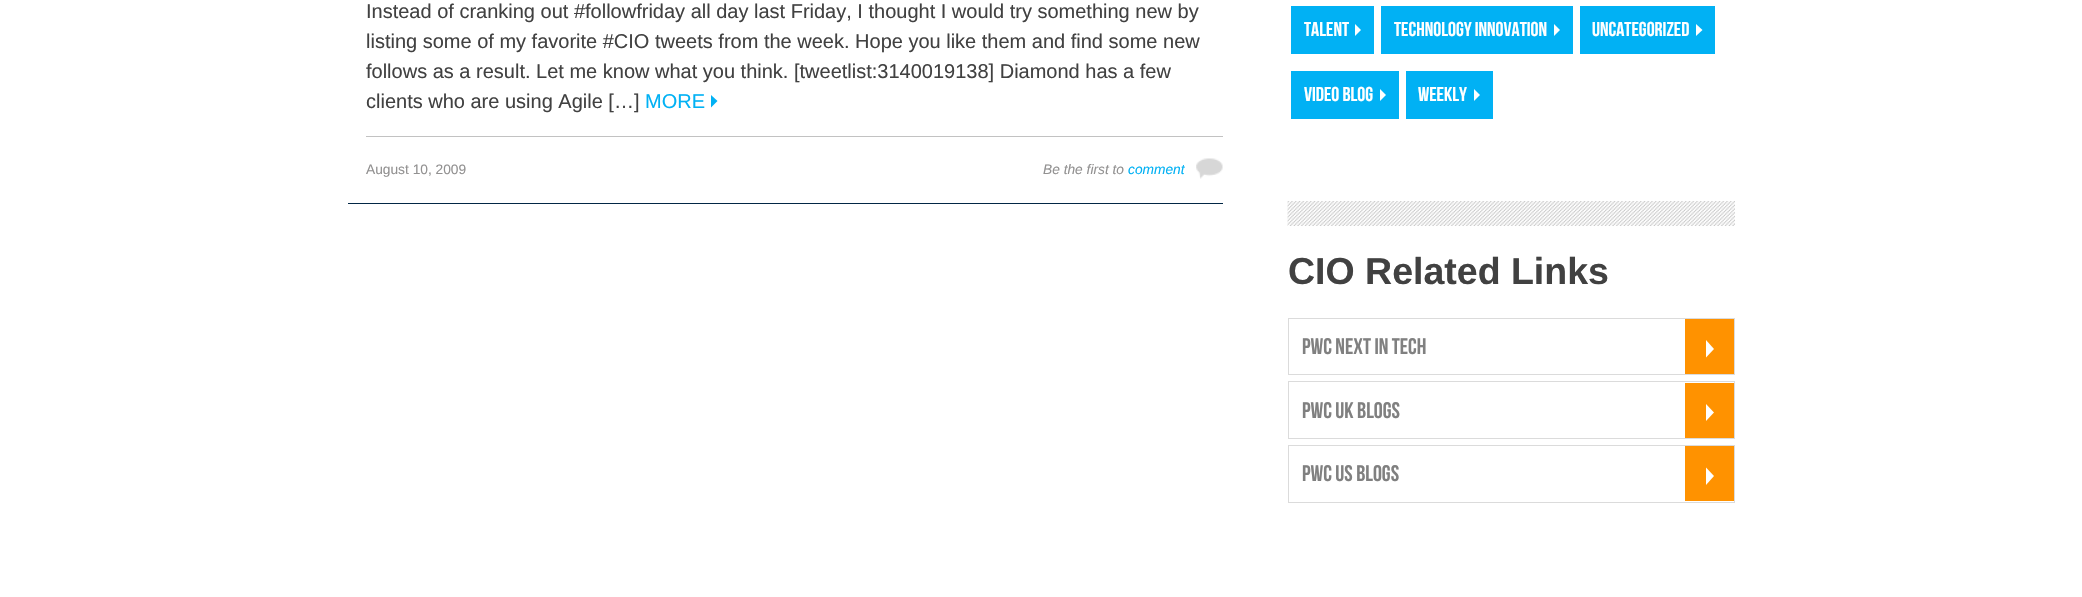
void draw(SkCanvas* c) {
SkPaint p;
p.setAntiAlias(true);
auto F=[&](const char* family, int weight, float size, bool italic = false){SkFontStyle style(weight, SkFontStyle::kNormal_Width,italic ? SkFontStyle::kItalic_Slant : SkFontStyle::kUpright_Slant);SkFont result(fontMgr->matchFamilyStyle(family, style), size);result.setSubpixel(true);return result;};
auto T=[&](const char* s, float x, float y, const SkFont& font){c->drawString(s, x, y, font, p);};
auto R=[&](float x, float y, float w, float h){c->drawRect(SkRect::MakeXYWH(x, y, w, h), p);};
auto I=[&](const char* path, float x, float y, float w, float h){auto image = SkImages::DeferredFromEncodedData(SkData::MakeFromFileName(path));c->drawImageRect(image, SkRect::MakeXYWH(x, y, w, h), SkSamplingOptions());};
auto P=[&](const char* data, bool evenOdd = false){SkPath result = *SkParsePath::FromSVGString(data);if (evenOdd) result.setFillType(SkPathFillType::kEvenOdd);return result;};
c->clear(0xffffffff);
p.setColor(0xff022745);
R(348,203,875,1);
auto f1 = F("Liberation Sans",400,20);
p.setColor(0xff414141);
T("Instead of cranking out #followfriday all day last Friday, I thought I would try something new by",366,18,f1);
T("listing some of my favorite #CIO tweets from the week. Hope you like them and find some new",366,48,f1);
T("follows as a result. Let me know what you think. [tweetlist:3140019138] Diamond has a few",366,78,f1);
T("clients who are using Agile […]",366,108,f1);
p.setColor(0xff01b1f4);
T("MORE",645,108,f1);
c->drawPath(P("M711 107.5v-12.5l6.5 6z"),p);
p.setColor(0xffc2c2c2);
R(366,136,857,1);
auto f2 = F("Liberation Sans",400,13.75);
p.setColor(0xff929191);
T("August 10, 2009",366,174,f2);
auto f3 = F("Liberation Sans",400,13.75,true);
T("Be the first to",1043,174,f3);
I("1.png",1196,158,27,21);
p.setColor(0xff01b1f4);
T("comment",1128,174,f3);
R(1291,6,83,48);
auto f4 = F("Bebas Neue",400,20);
p.setColor(0xffffffff);
T("TALENT",1304,36,f4);
c->drawPath(P("M1355 36v-12l6 6z"),p);
p.setColor(0xff01b1f4);
R(1381,6,192,48);
p.setColor(0xffffffff);
T("TECHNOLOGY INNOVATION",1394,36,f4);
c->drawPath(P("M1554 36v-12l6 6z"),p);
p.setColor(0xff01b1f4);
R(1580,6,135,48);
p.setColor(0xffffffff);
T("UNCATEGORIZED",1592,36,f4);
c->drawPath(P("M1696 36v-12l6.5 6z"),p);
p.setColor(0xff01b1f4);
R(1291,71,108,48);
p.setColor(0xffffffff);
T("VIDEO BLOG",1304,101,f4);
c->drawPath(P("M1380 101v-12l6 6z"),p);
p.setColor(0xff01b1f4);
R(1406,71,87,48);
p.setColor(0xffffffff);
T("WEEKLY",1418,101,f4);
c->drawPath(P("M1474 101v-12l6 6z"),p);
I("2.png",1287,201,448,25);
auto f5 = F("Liberation Sans",700,37.5);
p.setColor(0xff414141);
T("CIO Related Links",1288,284,f5);
p.setStroke(true);
p.setStrokeWidth(1);
p.setColor(0xffdbdbdb);
c->drawRect(SkRect::MakeXYWH(1288.5,318.5,446,56),p);
auto f6 = F("Bebas Neue",400,22.5);
p.setStroke(false);
p.setColor(0xff808080);
T("PWC NEXT IN TECH",1302,354,f6);
p.setColor(0xffff9200);
R(1685,319,49,55);
p.setColor(0xffffffff);
c->drawPath(P("M1706 357.5v-17.5l8 9z"),p);
p.setStroke(true);
p.setColor(0xffdbdbdb);
c->drawRect(SkRect::MakeXYWH(1288.5,381.5,446,57),p);
p.setStroke(false);
p.setColor(0xff808080);
T("PWC UK BLOGS",1302,418,f6);
p.setColor(0xffff9200);
R(1685,383,49,55);
p.setColor(0xffffffff);
c->drawPath(P("M1706 421v-17l8 8.5z"),p);
p.setStroke(true);
p.setColor(0xffdbdbdb);
c->drawRect(SkRect::MakeXYWH(1288.5,445.5,446,57),p);
p.setStroke(false);
p.setColor(0xff808080);
T("PWC US BLOGS",1302,481,f6);
p.setColor(0xffff9200);
R(1685,446,49,55);
p.setColor(0xffffffff);
c->drawPath(P("M1706 485v-17.5l8 8.5z"),p);
}
